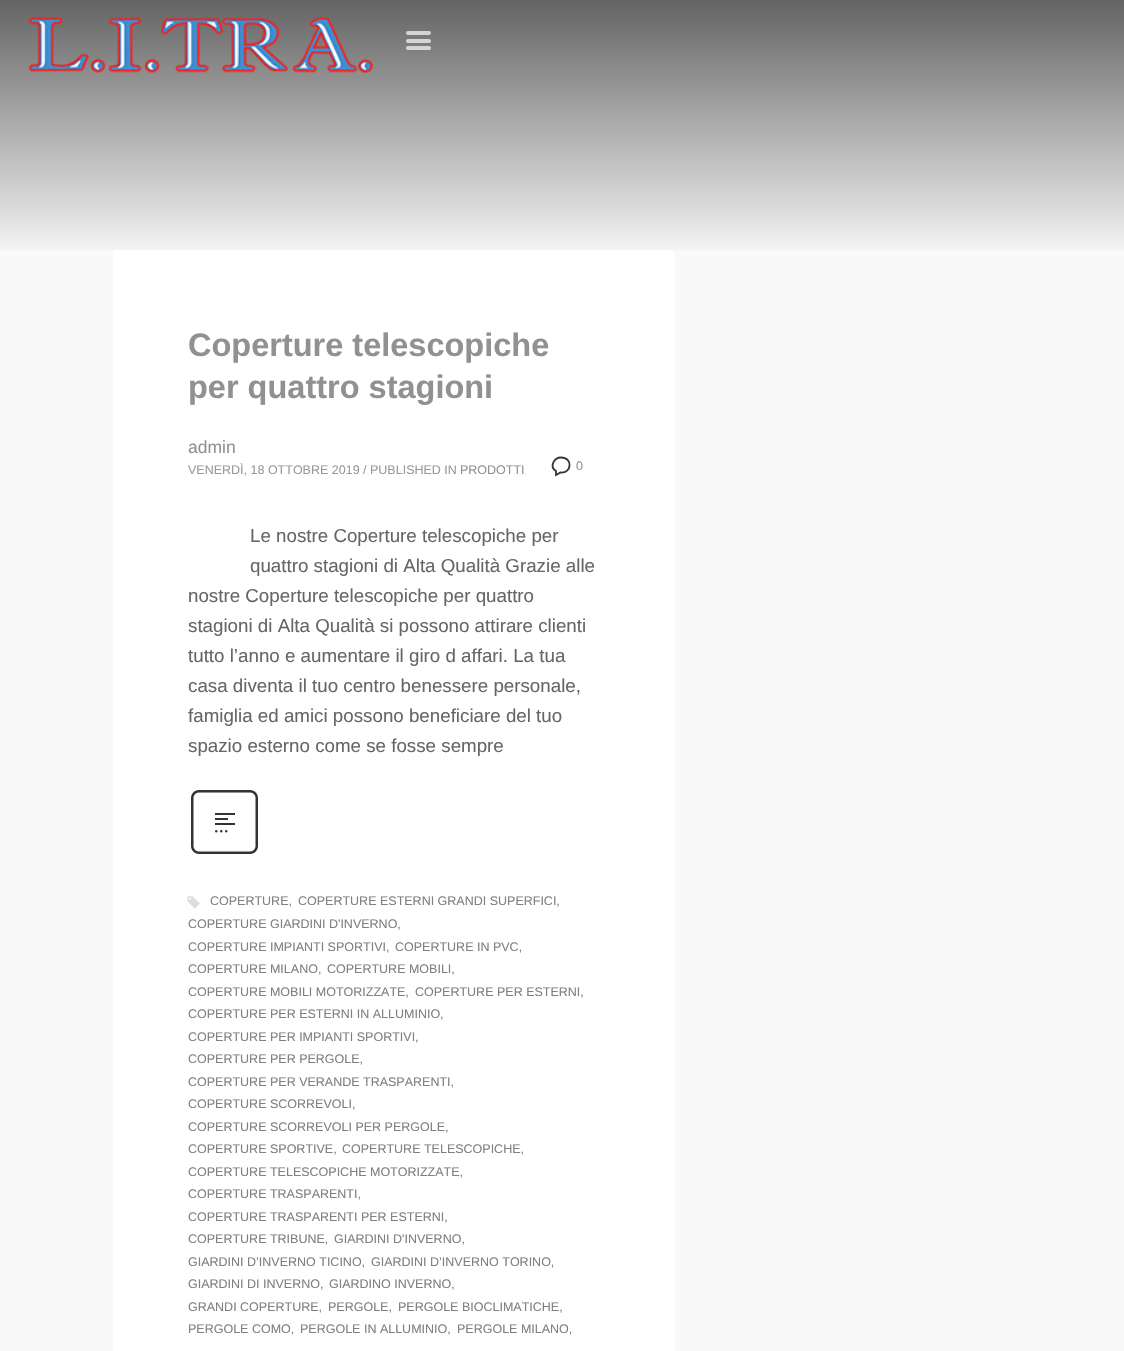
void draw(SkCanvas* c) {
SkPaint p;
p.setAntiAlias(true);
auto F=[&](const char* family, int weight, float size, bool italic = false){SkFontStyle style(weight, SkFontStyle::kNormal_Width,italic ? SkFontStyle::kItalic_Slant : SkFontStyle::kUpright_Slant);SkFont result(fontMgr->matchFamilyStyle(family, style), size);result.setSubpixel(true);return result;};
auto T=[&](const char* s, float x, float y, const SkFont& font){c->drawString(s, x, y, font, p);};
auto R=[&](float x, float y, float w, float h){c->drawRect(SkRect::MakeXYWH(x, y, w, h), p);};
auto Q=[&](float x, float y, float w, float h, float radius){c->drawRoundRect(SkRect::MakeXYWH(x, y, w, h), radius, radius, p);};
auto I=[&](const char* path, float x, float y, float w, float h){auto image = SkImages::DeferredFromEncodedData(SkData::MakeFromFileName(path));c->drawImageRect(image, SkRect::MakeXYWH(x, y, w, h), SkSamplingOptions());};
auto P=[&](const char* data, bool evenOdd = false){SkPath result = *SkParsePath::FromSVGString(data);if (evenOdd) result.setFillType(SkPathFillType::kEvenOdd);return result;};
c->clear(0xfff9f9f9);
{
const SkColor colors[] = {0x99000000,0x00000000};
const float stops[] = {0,1};
const SkPoint ends[] = {{563,0}, {563,259}};
p.setShader(SkGradientShader::MakeLinear(ends, colors, stops, 2, SkTileMode::kClamp));
p.setAlpha(255);
}
R(0,0,1124,250);
I("1.png",28,17,345,56);
p.setShader(nullptr);
p.setColor(0xffd4d4d4);
Q(406,31,25,4,2);
p.setColor(0xffd5d5d5);
Q(406,39,25,4,2);
p.setColor(0xffd6d6d6);
Q(406,46,25,4,2);
p.setColor(0xffffffff);
Q(113,250,562,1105,4);
auto f1 = F("Liberation Sans",700,32.5);
p.setColor(0xff919191);
T("Coperture telescopiche",188,356,f1);
T("per quattro stagioni",188,398,f1);
auto f2 = F("Liberation Sans",400,17.5);
T("admin",188,453,f2);
auto f3 = F("Liberation Sans",400,12.5);
p.setColor(0xff9a9a9a);
T("VENERDÌ, 18 OTTOBRE 2019 / PUBLISHED IN",188,474,f3);
p.setColor(0xff919191);
T("PRODOTTI",460,474,f3);
p.setStroke(true);
p.setStrokeWidth(1.8);
p.setColor(0xff343434);
c->drawPath(P("M561 457.5c-7 0-12 9-5 13.5v4l4.5-2.5c11.5 1 12.5-15 .5-15z"),p);
p.setStroke(false);
p.setColor(0xff919191);
T("0",576,470,f3);
auto f4 = F("Liberation Sans",400,18.75);
p.setColor(0xff666666);
T("Le nostre Coperture telescopiche per",250,542,f4);
T("quattro stagioni di Alta Qualità Grazie alle",250,572,f4);
T("nostre Coperture telescopiche per quattro",188,602,f4);
T("stagioni di Alta Qualità si possono attirare clienti",188,632,f4);
T("tutto l’anno e aumentare il giro d affari. La tua",188,662,f4);
T("casa diventa il tuo centro benessere personale,",188,692,f4);
T("famiglia ed amici possono beneficiare del tuo",188,722,f4);
T("spazio esterno come se fosse sempre",188,752,f4);
I("2.png",191,790,67,64);
I("3.png",187,896,13,13);
p.setColor(0xff808080);
T("COPERTURE,",210,905,f3);
T("COPERTURE ESTERNI GRANDI SUPERFICI,",298,905,f3);
T("COPERTURE GIARDINI D'INVERNO,",188,928,f3);
T("COPERTURE IMPIANTI SPORTIVI,",188,951,f3);
T("COPERTURE IN PVC,",395,951,f3);
T("COPERTURE MILANO,",188,973,f3);
T("COPERTURE MOBILI,",327,973,f3);
T("COPERTURE MOBILI MOTORIZZATE,",188,996,f3);
T("COPERTURE PER ESTERNI,",415,996,f3);
T("COPERTURE PER ESTERNI IN ALLUMINIO,",188,1018,f3);
T("COPERTURE PER IMPIANTI SPORTIVI,",188,1041,f3);
T("COPERTURE PER PERGOLE,",188,1063,f3);
T("COPERTURE PER VERANDE TRASPARENTI,",188,1086,f3);
T("COPERTURE SCORREVOLI,",188,1108,f3);
T("COPERTURE SCORREVOLI PER PERGOLE,",188,1131,f3);
T("COPERTURE SPORTIVE,",188,1153,f3);
T("COPERTURE TELESCOPICHE,",342,1153,f3);
T("COPERTURE TELESCOPICHE MOTORIZZATE,",188,1176,f3);
T("COPERTURE TRASPARENTI,",188,1198,f3);
T("COPERTURE TRASPARENTI PER ESTERNI,",188,1221,f3);
T("COPERTURE TRIBUNE,",188,1243,f3);
T("GIARDINI D'INVERNO,",334,1243,f3);
T("GIARDINI D’INVERNO TICINO,",188,1266,f3);
T("GIARDINI D’INVERNO TORINO,",371,1266,f3);
T("GIARDINI DI INVERNO,",188,1288,f3);
T("GIARDINO INVERNO,",329,1288,f3);
T("GRANDI COPERTURE,",188,1311,f3);
T("PERGOLE,",328,1311,f3);
T("PERGOLE BIOCLIMATICHE,",398,1311,f3);
T("PERGOLE COMO,",188,1333,f3);
T("PERGOLE IN ALLUMINIO,",300,1333,f3);
T("PERGOLE MILANO,",457,1333,f3);
}
